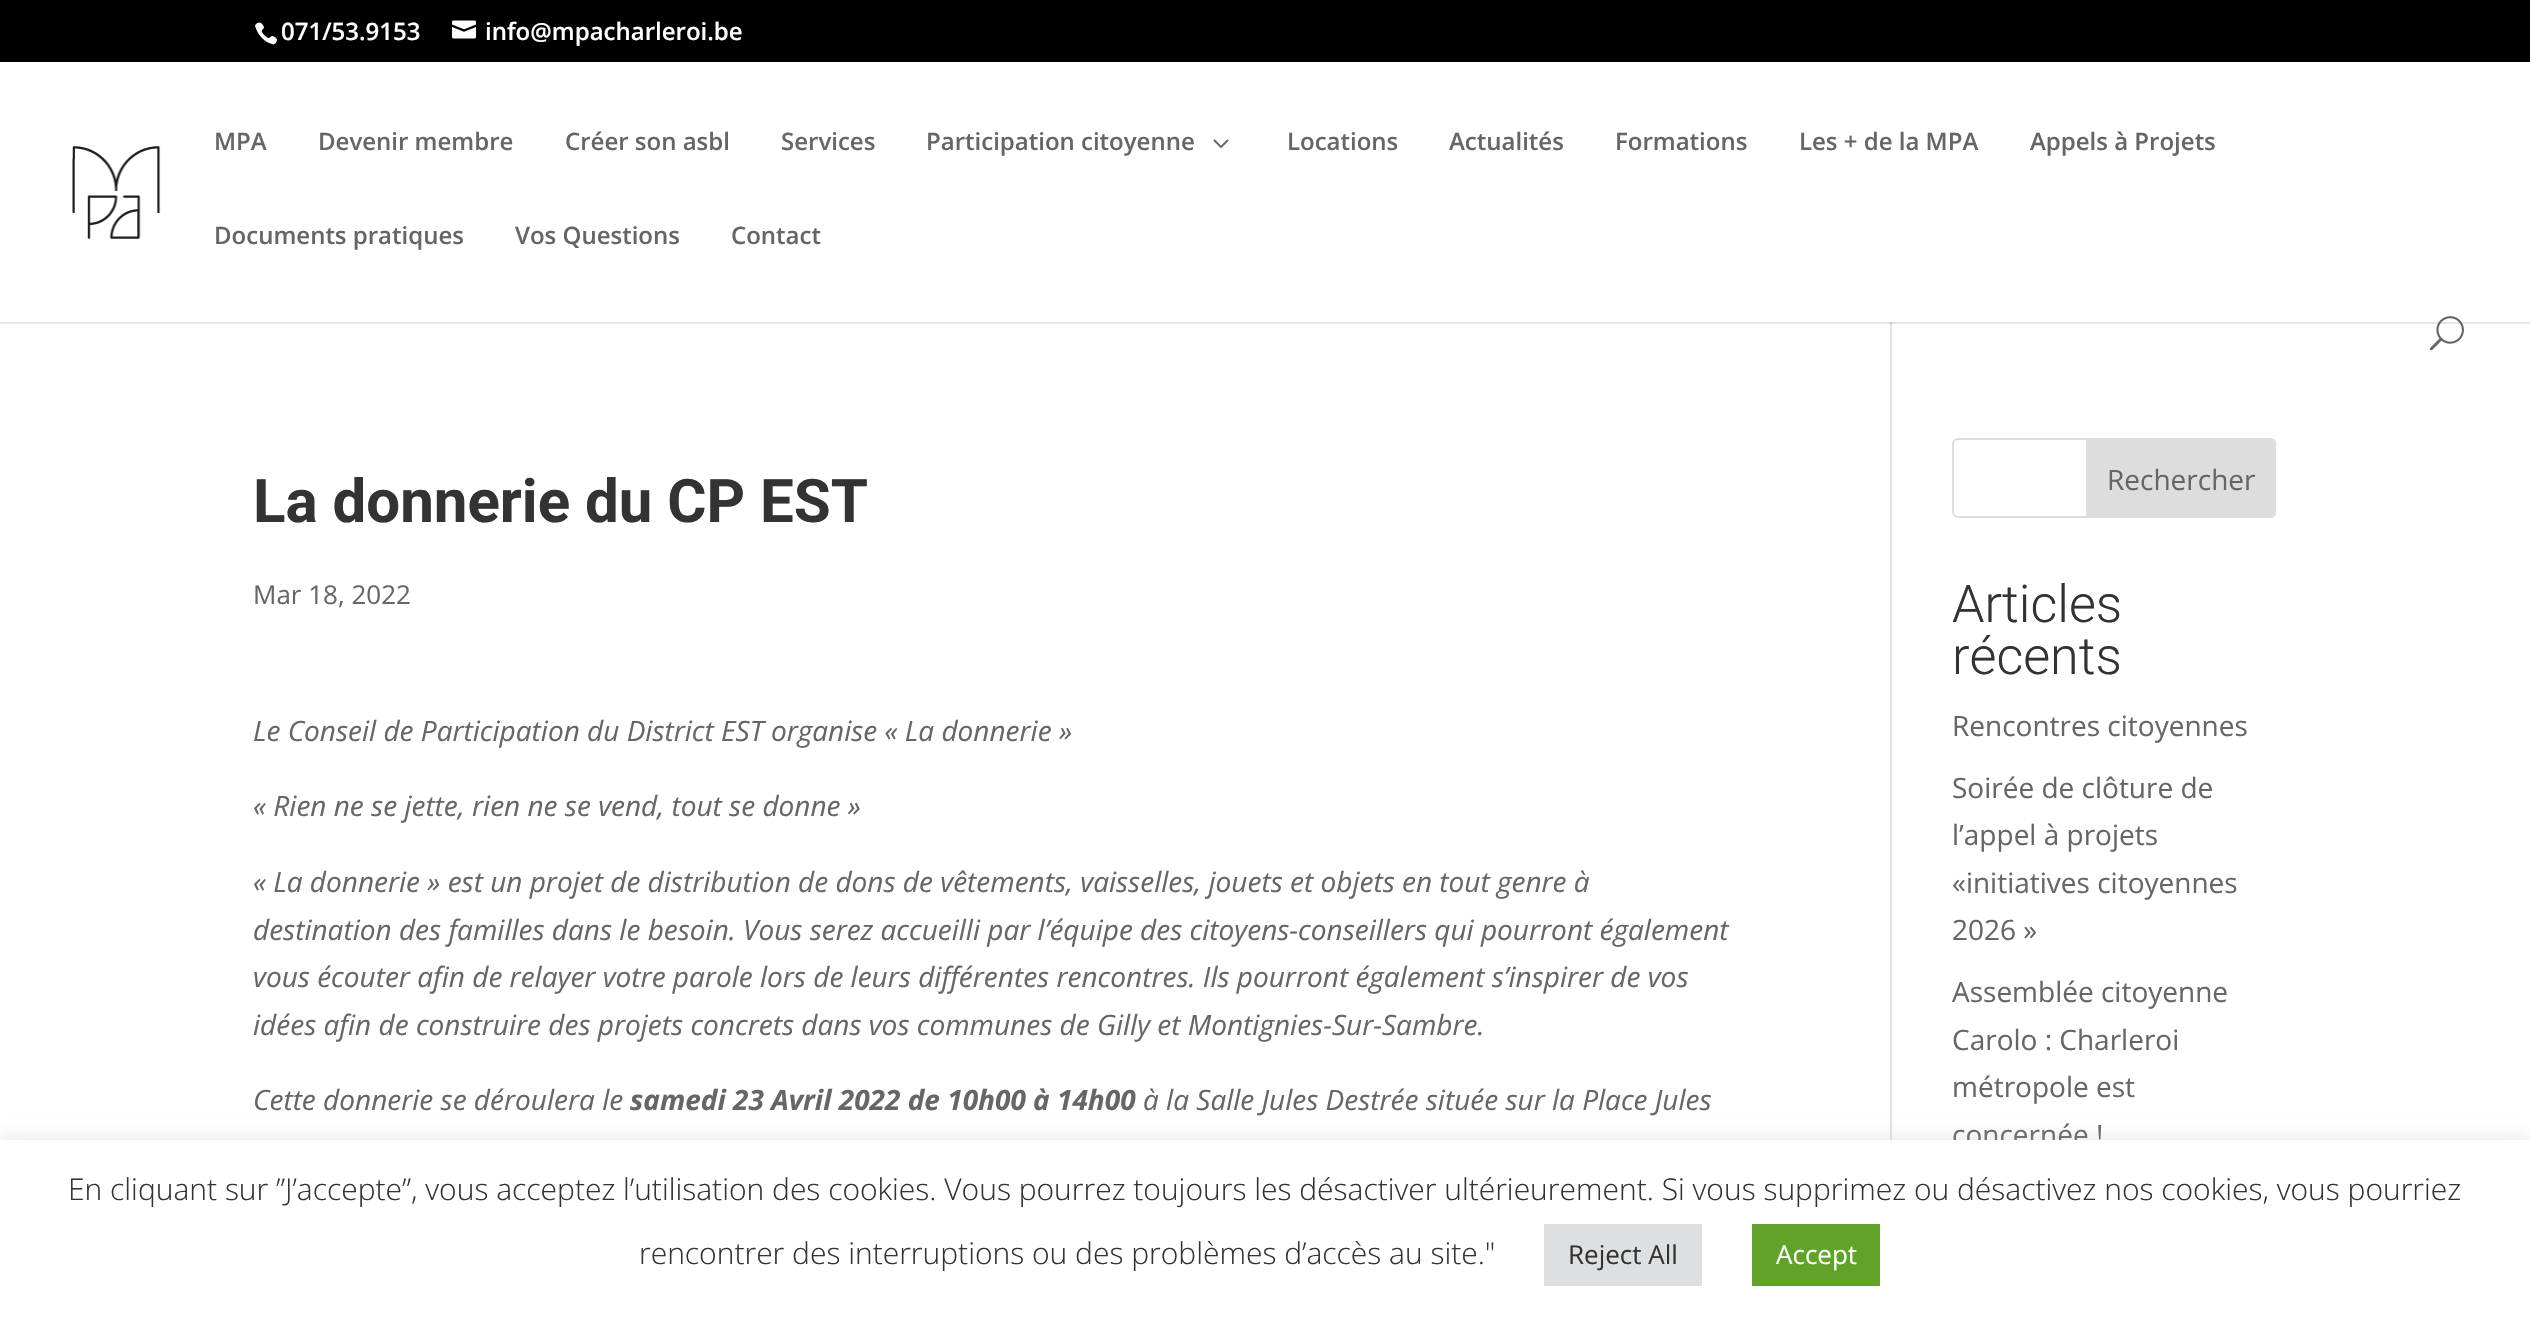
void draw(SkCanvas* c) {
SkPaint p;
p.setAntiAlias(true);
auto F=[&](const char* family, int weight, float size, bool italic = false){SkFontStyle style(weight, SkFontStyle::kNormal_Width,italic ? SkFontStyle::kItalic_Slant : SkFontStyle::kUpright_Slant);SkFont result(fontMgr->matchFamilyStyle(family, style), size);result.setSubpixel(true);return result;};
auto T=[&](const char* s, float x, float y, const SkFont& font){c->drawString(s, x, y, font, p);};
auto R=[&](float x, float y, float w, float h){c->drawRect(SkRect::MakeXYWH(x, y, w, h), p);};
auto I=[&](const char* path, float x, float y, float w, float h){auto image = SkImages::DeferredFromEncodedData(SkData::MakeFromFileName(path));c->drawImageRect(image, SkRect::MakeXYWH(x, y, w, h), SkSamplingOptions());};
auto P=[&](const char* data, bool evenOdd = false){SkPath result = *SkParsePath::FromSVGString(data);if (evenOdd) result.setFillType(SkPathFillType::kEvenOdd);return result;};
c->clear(0xffffffff);
p.setColor(0xffe6e6e6);
R(0,322,2530,2);
p.setColor(0xff000000);
R(0,0,2530,62);
I("1.png",255,22,22,23);
auto f1 = F("Open Sans",600,24);
p.setColor(0xffffffff);
T("071/53.9153",281,40,f1);
I("2.png",452,20,24,19);
T("info@mpacharleroi.be",485,40,f1);
I("3.png",72,146,89,93);
p.setColor(0xff666666);
T("MPA",214,150,f1);
T("Devenir membre",318,150,f1);
T("Créer son asbl",565,150,f1);
T("Services",781,150,f1);
T("Participation citoyenne",926,150,f1);
I("4.png",1213,139,16,9);
T("Locations",1287,150,f1);
T("Actualités",1449,150,f1);
T("Formations",1615,150,f1);
T("Les + de la MPA",1799,150,f1);
T("Appels à Projets",2030,150,f1);
T("Documents pratiques",214,244,f1);
T("Vos Questions",515,244,f1);
T("Contact",731,244,f1);
I("5.png",2429,316,35,35);
p.setColor(0xffe2e2e2);
R(1890,322,2,818);
p.setColor(0xffcbcbcb);
R(1890,322,2,2);
auto f2 = F("Roboto",700,60);
p.setColor(0xff333333);
T("La donnerie du CP EST",253,522,f2);
auto f3 = F("Open Sans",400,26);
p.setColor(0xff666666);
T("Mar 18, 2022",253,604,f3);
auto f4 = F("Open Sans",400,28,true);
T("Le Conseil de Participation du District EST organise « La donnerie »",253,741,f4);
T("« Rien ne se jette, rien ne se vend, tout se donne »",253,816,f4);
T("« La donnerie » est un projet de distribution de dons de vêtements, vaisselles, jouets et objets en tout genre à",253,892,f4);
T("destination des familles dans le besoin. Vous serez accueilli par l’équipe des citoyens-conseillers qui pourront également",253,940,f4);
T("vous écouter afin de relayer votre parole lors de leurs différentes rencontres. Ils pourront également s’inspirer de vos",253,987,f4);
T("idées afin de construire des projets concrets dans vos communes de Gilly et Montignies-Sur-Sambre.",253,1035,f4);
T("Cette donnerie se déroulera le",253,1110,f4);
auto f5 = F("Open Sans",700,28,true);
T("samedi 23 Avril 2022 de 10h00 à 14h00",630,1110,f5);
T("à la Salle Jules Destrée située sur la Place Jules",1143,1110,f4);
p.setStroke(true);
p.setStrokeWidth(2);
p.setColor(0xffdddddd);
c->drawRoundRect(SkRect::MakeXYWH(1953,439,322,78),5,5,p);
p.setStroke(false);
c->drawPath(P("M2087 439h183c3 0 5 2 5 5v68c0 3-2 5-5 5h-183z"),p);
p.setStroke(true);
c->drawPath(P("M2087 439h183c3 0 5 2 5 5v68c0 3-2 5-5 5h-183z"),p);
auto f6 = F("Open Sans",400,28);
p.setStroke(false);
p.setColor(0xff666666);
T("Rechercher",2107,490,f6);
auto f7 = F("Roboto",300,52);
p.setColor(0xff333333);
T("Articles",1952,622,f7);
T("récents",1952,674,f7);
p.setColor(0xff666666);
T("Rencontres citoyennes",1952,736,f6);
T("Soirée de clôture de",1952,798,f6);
T("l’appel à projets",1952,845,f6);
T("«initiatives citoyennes",1952,893,f6);
T("2026 »",1952,940,f6);
T("Assemblée citoyenne",1952,1002,f6);
T("Carolo : Charleroi",1952,1050,f6);
T("métropole est",1952,1097,f6);
T("concernée !",1952,1145,f6);
p.setColor(0x4dacabab);
p.setMaskFilter(SkMaskFilter::MakeBlur(kNormal_SkBlurStyle, 10));
c->drawRect(SkRect::MakeXYWH(0,1138,2530,180),p);
p.setMaskFilter(nullptr);
p.setColor(0xffffffff);
R(0,1140,2530,180);
auto f8 = F("Open Sans",300,30);
p.setColor(0xff333333);
T("En cliquant sur ”J’accepte”, vous acceptez l’utilisation des cookies. Vous pourrez toujours les désactiver ultérieurement. Si vous supprimez ou désactivez nos cookies, vous pourriez",68,1200,f8);
T("rencontrer des interruptions ou des problèmes d’accès au site.\"",639,1264,f8);
p.setColor(0xffdedfe0);
R(1544,1224,158,62);
p.setColor(0xff333333);
T("Reject All",1568,1264,f3);
p.setColor(0xff61a229);
R(1752,1224,128,62);
p.setColor(0xffffffff);
T("Accept",1776,1264,f3);
}
